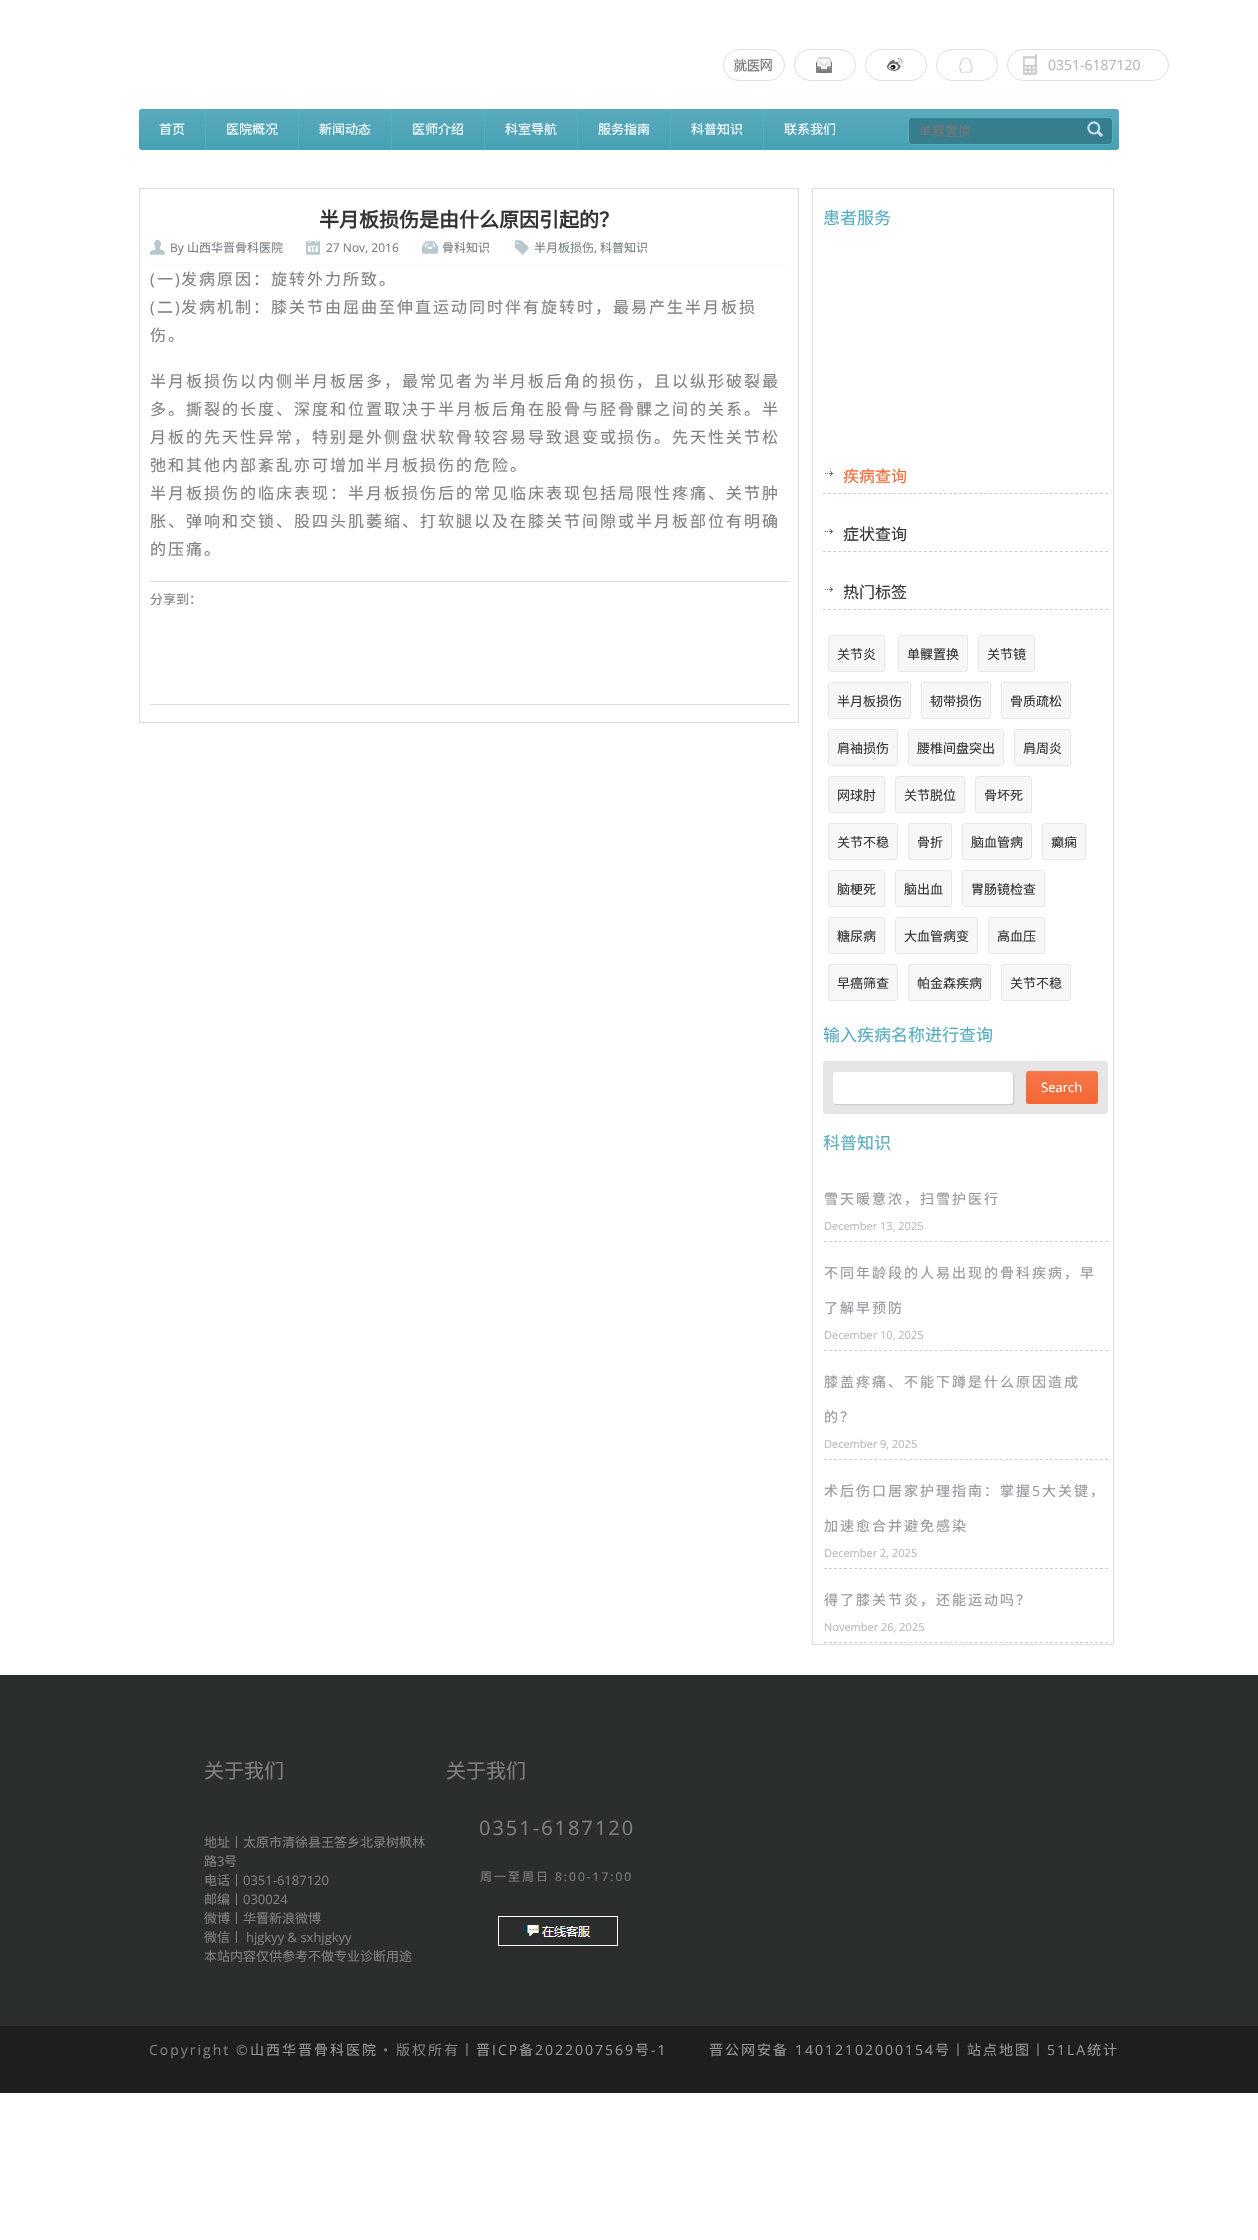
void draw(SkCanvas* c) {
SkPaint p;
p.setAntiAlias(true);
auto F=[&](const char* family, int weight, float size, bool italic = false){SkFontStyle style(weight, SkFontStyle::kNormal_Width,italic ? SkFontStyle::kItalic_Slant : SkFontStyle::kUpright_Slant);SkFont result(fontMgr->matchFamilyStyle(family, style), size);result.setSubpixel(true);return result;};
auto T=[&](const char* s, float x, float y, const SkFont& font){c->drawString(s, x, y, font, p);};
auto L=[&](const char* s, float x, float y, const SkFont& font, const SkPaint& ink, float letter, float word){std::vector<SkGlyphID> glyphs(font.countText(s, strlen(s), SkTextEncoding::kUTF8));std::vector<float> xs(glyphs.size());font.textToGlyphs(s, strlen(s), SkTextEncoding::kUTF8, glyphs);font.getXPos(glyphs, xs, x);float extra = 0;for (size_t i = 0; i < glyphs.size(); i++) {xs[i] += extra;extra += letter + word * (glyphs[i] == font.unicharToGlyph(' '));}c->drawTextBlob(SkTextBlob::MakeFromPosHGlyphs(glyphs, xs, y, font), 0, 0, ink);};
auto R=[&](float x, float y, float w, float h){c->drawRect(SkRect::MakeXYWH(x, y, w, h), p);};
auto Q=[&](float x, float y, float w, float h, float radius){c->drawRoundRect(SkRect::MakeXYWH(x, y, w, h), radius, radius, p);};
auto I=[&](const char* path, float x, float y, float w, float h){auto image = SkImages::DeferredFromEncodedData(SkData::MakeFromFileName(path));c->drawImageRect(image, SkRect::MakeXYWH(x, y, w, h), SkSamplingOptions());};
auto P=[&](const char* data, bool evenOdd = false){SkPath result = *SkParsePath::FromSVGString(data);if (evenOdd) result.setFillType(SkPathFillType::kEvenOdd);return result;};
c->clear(0xffffffff);
p.setStroke(true);
p.setStrokeWidth(1);
p.setColor(0xffdfdfdf);
c->drawRoundRect(SkRect::MakeXYWH(723.5,49.5,61,31),15.5,15.5,p);
I("1.png",734,59,38,13);
c->drawRoundRect(SkRect::MakeXYWH(794.5,49.5,61,31),15.5,15.5,p);
I("2.png",816,57,16,16);
c->drawRoundRect(SkRect::MakeXYWH(865.5,49.5,61,31),15.5,15.5,p);
I("3.png",887,58,16,13);
c->drawRoundRect(SkRect::MakeXYWH(936.5,49.5,61,31),15.5,15.5,p);
I("4.png",959,58,14,15);
c->drawRoundRect(SkRect::MakeXYWH(1007.5,49.5,161,31),15.5,15.5,p);
I("5.png",1023,54,14,21);
auto f1 = F("Open Sans",400,14);
p.setStroke(false);
p.setColor(0xffb0b7b9);
T("0351-6187120",1048,70,f1);
p.setColor(0xff46a1b4);
Q(139,109,980,41,3);
{
const SkColor colors[] = {0x1affffff,0x00ffffff};
const float stops[] = {0,1};
const SkPoint ends[] = {{629,109}, {629,150}};
p.setShader(SkGradientShader::MakeLinear(ends, colors, stops, 2, SkTileMode::kClamp));
p.setAlpha(255);
}
Q(139,109,980,41,3);
p.setShader(nullptr);
p.setColor(0xff54aec2);
R(205,109,1,41);
auto f2 = F("Noto Sans CJK SC",400,13);
p.setColor(0xffffffff);
T("首页",159,134,f2);
p.setColor(0xff54aec2);
R(298,109,1,41);
p.setColor(0xffffffff);
T("医院概况",226,134,f2);
p.setColor(0xff54aec2);
R(391,109,1,41);
p.setColor(0xffffffff);
T("新闻动态",319,134,f2);
p.setColor(0xff54aec2);
R(484,109,1,41);
p.setColor(0xffffffff);
T("医师介绍",412,134,f2);
p.setColor(0xff54aec2);
R(577,109,1,41);
p.setColor(0xffffffff);
T("科室导航",505,134,f2);
p.setColor(0xff54aec2);
R(670,109,1,41);
p.setColor(0xffffffff);
T("服务指南",598,134,f2);
p.setColor(0xff54aec2);
R(763,109,1,41);
p.setColor(0xffffffff);
T("科普知识",691,134,f2);
T("联系我们",784,134,f2);
p.setColor(0xff377f8f);
c->drawRoundRect(SkRect::MakeXYWH(908.5,117.5,204,27),3.5,3.5,p);
p.setStroke(true);
p.setColor(0xff54aec2);
c->drawRoundRect(SkRect::MakeXYWH(908.5,117.5,204,27),3.5,3.5,p);
p.setStroke(false);
p.setColor(0xff757575);
T("单髁置换",919,136,f2);
I("6.png",1087,121,16,16);
p.setStroke(true);
p.setColor(0xffdedede);
c->drawRect(SkRect::MakeXYWH(139.5,188.5,659,534),p);
auto f3 = F("Noto Sans CJK SC",700,20);
p.setStroke(false);
p.setColor(0xff333333);
T("半月板损伤是由什么原因引起的？",319,227,f3);
p.setColor(0xfffafafa);
R(150,264,638,1);
I("7.png",150,240,15,15);
auto f4 = F("Open Sans",400,12);
p.setColor(0xff757f83);
T("By",170,252,f4);
auto f5 = F("Noto Sans CJK SC",400,12);
T("山西华晋骨科医院",187,252,f5);
I("8.png",306,240,14,15);
T("27 Nov, 2016",326,252,f4);
I("9.png",422,241,16,13);
T("骨科知识",442,252,f5);
I("10.png",514,240,15,15);
T("半月板损伤",534,252,f5);
T(",",594,252,f4);
T("科普知识",600,252,f5);
auto f6 = F("Open Sans",400,16);
p.setColor(0xff808080);
L("(",150,285,f6,p,2,0);
auto f7 = F("Noto Sans CJK SC",400,16);
L("一",157,285,f7,p,2,0);
L(")",175,285,f6,p,2,0);
L("发病原因：旋转外力所致。",181,285,f7,p,2,0);
L("(",150,313,f6,p,2,0);
L("二",157,313,f7,p,2,0);
L(")",175,313,f6,p,2,0);
L("发病机制：膝关节由屈曲至伸直运动同时伴有旋转时，最易产生半月板损",181,313,f7,p,2,0);
L("伤。",150,341,f7,p,2,0);
L("半月板损伤以内侧半月板居多，最常见者为半月板后角的损伤，且以纵形破裂最",150,387,f7,p,2,0);
L("多。撕裂的长度、深度和位置取决于半月板后角在股骨与胫骨髁之间的关系。半",150,415,f7,p,2,0);
L("月板的先天性异常，特别是外侧盘状软骨较容易导致退变或损伤。先天性关节松",150,443,f7,p,2,0);
L("弛和其他内部紊乱亦可增加半月板损伤的危险。",150,471,f7,p,2,0);
L("半月板损伤的临床表现：半月板损伤后的常见临床表现包括局限性疼痛、关节肿",150,499,f7,p,2,0);
L("胀、弹响和交锁、股四头肌萎缩、打软腿以及在膝关节间隙或半月板部位有明确",150,527,f7,p,2,0);
L("的压痛。",150,555,f7,p,2,0);
p.setColor(0xffdddddd);
R(150,581,640,1);
p.setColor(0xff808080);
T("分享到：",150,604,f2);
p.setColor(0xffdddddd);
R(150,704,640,1);
p.setStroke(true);
p.setColor(0xffdedede);
c->drawRect(SkRect::MakeXYWH(812.5,188.5,301,1456),p);
auto f8 = F("Noto Sans CJK SC",400,17);
p.setStroke(false);
p.setColor(0xff56adc0);
T("患者服务",823,224,f8);
I("11.png",825,471,8,5);
p.setStroke(true);
p.setColor(0xffcfcfcf);
p.setPathEffect(SkDashPathEffect::Make({{3,2.04f}}, 0));
c->drawPath(P("M823 493.5h285"),p);
p.setPathEffect(nullptr);
p.setStroke(false);
p.setColor(0xfff56734);
T("疾病查询",843,482,f7);
I("11.png",825,529,8,5);
p.setStroke(true);
p.setColor(0xffcfcfcf);
p.setPathEffect(SkDashPathEffect::Make({{3,2.04f}}, 0));
c->drawPath(P("M823 551.5h285"),p);
p.setPathEffect(nullptr);
p.setStroke(false);
p.setColor(0xff333333);
T("症状查询",843,540,f7);
I("11.png",825,587,8,5);
p.setStroke(true);
p.setColor(0xffcfcfcf);
p.setPathEffect(SkDashPathEffect::Make({{3,2.04f}}, 0));
c->drawPath(P("M823 609.5h285"),p);
p.setPathEffect(nullptr);
p.setStroke(false);
p.setColor(0xff333333);
T("热门标签",843,598,f7);
p.setColor(0xfff7f7f7);
c->drawRoundRect(SkRect::MakeXYWH(828.5,635.5,56,36),2.5,2.5,p);
p.setStroke(true);
p.setColor(0xffe7e7e7);
c->drawRoundRect(SkRect::MakeXYWH(828.5,635.5,56,36),2.5,2.5,p);
p.setStroke(false);
p.setColor(0xff333333);
T("关节炎",837,659,f2);
p.setColor(0xfff7f7f7);
c->drawRoundRect(SkRect::MakeXYWH(898.5,635.5,69,36),2.5,2.5,p);
p.setStroke(true);
p.setColor(0xffe7e7e7);
c->drawRoundRect(SkRect::MakeXYWH(898.5,635.5,69,36),2.5,2.5,p);
p.setStroke(false);
p.setColor(0xff333333);
T("单髁置换",907,659,f2);
p.setColor(0xfff7f7f7);
c->drawRoundRect(SkRect::MakeXYWH(978.5,635.5,56,36),2.5,2.5,p);
p.setStroke(true);
p.setColor(0xffe7e7e7);
c->drawRoundRect(SkRect::MakeXYWH(978.5,635.5,56,36),2.5,2.5,p);
p.setStroke(false);
p.setColor(0xff333333);
T("关节镜",987,659,f2);
p.setColor(0xfff7f7f7);
c->drawRoundRect(SkRect::MakeXYWH(828.5,682.5,82,36),2.5,2.5,p);
p.setStroke(true);
p.setColor(0xffe7e7e7);
c->drawRoundRect(SkRect::MakeXYWH(828.5,682.5,82,36),2.5,2.5,p);
p.setStroke(false);
p.setColor(0xff333333);
T("半月板损伤",837,706,f2);
p.setColor(0xfff7f7f7);
c->drawRoundRect(SkRect::MakeXYWH(921.5,682.5,69,36),2.5,2.5,p);
p.setStroke(true);
p.setColor(0xffe7e7e7);
c->drawRoundRect(SkRect::MakeXYWH(921.5,682.5,69,36),2.5,2.5,p);
p.setStroke(false);
p.setColor(0xff333333);
T("韧带损伤",930,706,f2);
p.setColor(0xfff7f7f7);
c->drawRoundRect(SkRect::MakeXYWH(1001.5,682.5,69,36),2.5,2.5,p);
p.setStroke(true);
p.setColor(0xffe7e7e7);
c->drawRoundRect(SkRect::MakeXYWH(1001.5,682.5,69,36),2.5,2.5,p);
p.setStroke(false);
p.setColor(0xff333333);
T("骨质疏松",1010,706,f2);
p.setColor(0xfff7f7f7);
c->drawRoundRect(SkRect::MakeXYWH(828.5,729.5,69,36),2.5,2.5,p);
p.setStroke(true);
p.setColor(0xffe7e7e7);
c->drawRoundRect(SkRect::MakeXYWH(828.5,729.5,69,36),2.5,2.5,p);
p.setStroke(false);
p.setColor(0xff333333);
T("肩袖损伤",837,753,f2);
p.setColor(0xfff7f7f7);
c->drawRoundRect(SkRect::MakeXYWH(908.5,729.5,95,36),2.5,2.5,p);
p.setStroke(true);
p.setColor(0xffe7e7e7);
c->drawRoundRect(SkRect::MakeXYWH(908.5,729.5,95,36),2.5,2.5,p);
p.setStroke(false);
p.setColor(0xff333333);
T("腰椎间盘突出",917,753,f2);
p.setColor(0xfff7f7f7);
c->drawRoundRect(SkRect::MakeXYWH(1014.5,729.5,56,36),2.5,2.5,p);
p.setStroke(true);
p.setColor(0xffe7e7e7);
c->drawRoundRect(SkRect::MakeXYWH(1014.5,729.5,56,36),2.5,2.5,p);
p.setStroke(false);
p.setColor(0xff333333);
T("肩周炎",1023,753,f2);
p.setColor(0xfff7f7f7);
c->drawRoundRect(SkRect::MakeXYWH(828.5,776.5,56,36),2.5,2.5,p);
p.setStroke(true);
p.setColor(0xffe7e7e7);
c->drawRoundRect(SkRect::MakeXYWH(828.5,776.5,56,36),2.5,2.5,p);
p.setStroke(false);
p.setColor(0xff333333);
T("网球肘",837,800,f2);
p.setColor(0xfff7f7f7);
c->drawRoundRect(SkRect::MakeXYWH(895.5,776.5,69,36),2.5,2.5,p);
p.setStroke(true);
p.setColor(0xffe7e7e7);
c->drawRoundRect(SkRect::MakeXYWH(895.5,776.5,69,36),2.5,2.5,p);
p.setStroke(false);
p.setColor(0xff333333);
T("关节脱位",904,800,f2);
p.setColor(0xfff7f7f7);
c->drawRoundRect(SkRect::MakeXYWH(975.5,776.5,56,36),2.5,2.5,p);
p.setStroke(true);
p.setColor(0xffe7e7e7);
c->drawRoundRect(SkRect::MakeXYWH(975.5,776.5,56,36),2.5,2.5,p);
p.setStroke(false);
p.setColor(0xff333333);
T("骨坏死",984,800,f2);
p.setColor(0xfff7f7f7);
c->drawRoundRect(SkRect::MakeXYWH(828.5,823.5,69,36),2.5,2.5,p);
p.setStroke(true);
p.setColor(0xffe7e7e7);
c->drawRoundRect(SkRect::MakeXYWH(828.5,823.5,69,36),2.5,2.5,p);
p.setStroke(false);
p.setColor(0xff333333);
T("关节不稳",837,847,f2);
p.setColor(0xfff7f7f7);
c->drawRoundRect(SkRect::MakeXYWH(908.5,823.5,43,36),2.5,2.5,p);
p.setStroke(true);
p.setColor(0xffe7e7e7);
c->drawRoundRect(SkRect::MakeXYWH(908.5,823.5,43,36),2.5,2.5,p);
p.setStroke(false);
p.setColor(0xff333333);
T("骨折",917,847,f2);
p.setColor(0xfff7f7f7);
c->drawRoundRect(SkRect::MakeXYWH(962.5,823.5,69,36),2.5,2.5,p);
p.setStroke(true);
p.setColor(0xffe7e7e7);
c->drawRoundRect(SkRect::MakeXYWH(962.5,823.5,69,36),2.5,2.5,p);
p.setStroke(false);
p.setColor(0xff333333);
T("脑血管病",971,847,f2);
p.setColor(0xfff7f7f7);
c->drawRoundRect(SkRect::MakeXYWH(1042.5,823.5,43,36),2.5,2.5,p);
p.setStroke(true);
p.setColor(0xffe7e7e7);
c->drawRoundRect(SkRect::MakeXYWH(1042.5,823.5,43,36),2.5,2.5,p);
p.setStroke(false);
p.setColor(0xff333333);
T("癫痫",1051,847,f2);
p.setColor(0xfff7f7f7);
c->drawRoundRect(SkRect::MakeXYWH(828.5,870.5,56,36),2.5,2.5,p);
p.setStroke(true);
p.setColor(0xffe7e7e7);
c->drawRoundRect(SkRect::MakeXYWH(828.5,870.5,56,36),2.5,2.5,p);
p.setStroke(false);
p.setColor(0xff333333);
T("脑梗死",837,894,f2);
p.setColor(0xfff7f7f7);
c->drawRoundRect(SkRect::MakeXYWH(895.5,870.5,56,36),2.5,2.5,p);
p.setStroke(true);
p.setColor(0xffe7e7e7);
c->drawRoundRect(SkRect::MakeXYWH(895.5,870.5,56,36),2.5,2.5,p);
p.setStroke(false);
p.setColor(0xff333333);
T("脑出血",904,894,f2);
p.setColor(0xfff7f7f7);
c->drawRoundRect(SkRect::MakeXYWH(962.5,870.5,82,36),2.5,2.5,p);
p.setStroke(true);
p.setColor(0xffe7e7e7);
c->drawRoundRect(SkRect::MakeXYWH(962.5,870.5,82,36),2.5,2.5,p);
p.setStroke(false);
p.setColor(0xff333333);
T("胃肠镜检查",971,894,f2);
p.setColor(0xfff7f7f7);
c->drawRoundRect(SkRect::MakeXYWH(828.5,917.5,56,36),2.5,2.5,p);
p.setStroke(true);
p.setColor(0xffe7e7e7);
c->drawRoundRect(SkRect::MakeXYWH(828.5,917.5,56,36),2.5,2.5,p);
p.setStroke(false);
p.setColor(0xff333333);
T("糖尿病",837,941,f2);
p.setColor(0xfff7f7f7);
c->drawRoundRect(SkRect::MakeXYWH(895.5,917.5,82,36),2.5,2.5,p);
p.setStroke(true);
p.setColor(0xffe7e7e7);
c->drawRoundRect(SkRect::MakeXYWH(895.5,917.5,82,36),2.5,2.5,p);
p.setStroke(false);
p.setColor(0xff333333);
T("大血管病变",904,941,f2);
p.setColor(0xfff7f7f7);
c->drawRoundRect(SkRect::MakeXYWH(988.5,917.5,56,36),2.5,2.5,p);
p.setStroke(true);
p.setColor(0xffe7e7e7);
c->drawRoundRect(SkRect::MakeXYWH(988.5,917.5,56,36),2.5,2.5,p);
p.setStroke(false);
p.setColor(0xff333333);
T("高血压",997,941,f2);
p.setColor(0xfff7f7f7);
c->drawRoundRect(SkRect::MakeXYWH(828.5,964.5,69,36),2.5,2.5,p);
p.setStroke(true);
p.setColor(0xffe7e7e7);
c->drawRoundRect(SkRect::MakeXYWH(828.5,964.5,69,36),2.5,2.5,p);
p.setStroke(false);
p.setColor(0xff333333);
T("早癌筛查",837,988,f2);
p.setColor(0xfff7f7f7);
c->drawRoundRect(SkRect::MakeXYWH(908.5,964.5,82,36),2.5,2.5,p);
p.setStroke(true);
p.setColor(0xffe7e7e7);
c->drawRoundRect(SkRect::MakeXYWH(908.5,964.5,82,36),2.5,2.5,p);
p.setStroke(false);
p.setColor(0xff333333);
T("帕金森疾病",917,988,f2);
p.setColor(0xfff7f7f7);
c->drawRoundRect(SkRect::MakeXYWH(1001.5,964.5,69,36),2.5,2.5,p);
p.setStroke(true);
p.setColor(0xffe7e7e7);
c->drawRoundRect(SkRect::MakeXYWH(1001.5,964.5,69,36),2.5,2.5,p);
p.setStroke(false);
p.setColor(0xff333333);
T("关节不稳",1010,988,f2);
p.setColor(0xff56adc0);
T("输入疾病名称进行查询",823,1041,f8);
p.setColor(0xffe6e6e6);
Q(823,1061,285,53,3);
p.setColor(0xffc4c4c4);
p.setMaskFilter(SkMaskFilter::MakeBlur(kNormal_SkBlurStyle, 1));
c->drawRoundRect(SkRect::MakeXYWH(834,1073,180,32),3,3,p);
p.setMaskFilter(nullptr);
p.setColor(0xffffffff);
Q(833,1072,180,32,3);
p.setColor(0xfff56734);
Q(1026,1071,72,33,3);
{
const SkColor colors[] = {0x1affffff,0x00ffffff};
const float stops[] = {0,1};
const SkPoint ends[] = {{1062,1071}, {1062,1104}};
p.setShader(SkGradientShader::MakeLinear(ends, colors, stops, 2, SkTileMode::kClamp));
p.setAlpha(255);
}
Q(1026,1071,72,33,3);
auto f9 = F("Open Sans",400,13);
p.setShader(nullptr);
p.setColor(0xffffffff);
T("Search",1041,1092,f9);
p.setColor(0xff56adc0);
T("科普知识",823,1149,f8);
p.setStroke(true);
p.setColor(0xffcfcfcf);
p.setPathEffect(SkDashPathEffect::Make({{3,2.02f}}, 0));
c->drawPath(P("M824 1241.5h284"),p);
p.setPathEffect(nullptr);
auto f10 = F("Noto Sans CJK SC",400,14);
p.setStroke(false);
p.setColor(0xff95959c);
L("雪天暖意浓，扫雪护医行",824,1204,f10,p,2,0);
auto f11 = F("Open Sans",400,11);
p.setColor(0xffb8b8c1);
T("December 13, 2025",824,1230,f11);
p.setStroke(true);
p.setColor(0xffcfcfcf);
p.setPathEffect(SkDashPathEffect::Make({{3,2.02f}}, 0));
c->drawPath(P("M824 1350.5h284"),p);
p.setPathEffect(nullptr);
p.setStroke(false);
p.setColor(0xff95959c);
L("不同年龄段的人易出现的骨科疾病，早",824,1278,f10,p,2,0);
L("了解早预防",824,1313,f10,p,2,0);
p.setColor(0xffb8b8c1);
T("December 10, 2025",824,1339,f11);
p.setStroke(true);
p.setColor(0xffcfcfcf);
p.setPathEffect(SkDashPathEffect::Make({{3,2.02f}}, 0));
c->drawPath(P("M824 1459.5h284"),p);
p.setPathEffect(nullptr);
p.setStroke(false);
p.setColor(0xff95959c);
L("膝盖疼痛、不能下蹲是什么原因造成",824,1387,f10,p,2,0);
L("的？",824,1422,f10,p,2,0);
p.setColor(0xffb8b8c1);
T("December 9, 2025",824,1448,f11);
p.setStroke(true);
p.setColor(0xffcfcfcf);
p.setPathEffect(SkDashPathEffect::Make({{3,2.02f}}, 0));
c->drawPath(P("M824 1568.5h284"),p);
p.setPathEffect(nullptr);
p.setStroke(false);
p.setColor(0xff95959c);
L("术后伤口居家护理指南：掌握",824,1496,f10,p,2,0);
L("5",1032,1496,f1,p,2,0);
L("大关键，",1042,1496,f10,p,2,0);
L("加速愈合并避免感染",824,1531,f10,p,2,0);
p.setColor(0xffb8b8c1);
T("December 2, 2025",824,1557,f11);
p.setStroke(true);
p.setColor(0xffcfcfcf);
p.setPathEffect(SkDashPathEffect::Make({{3,2.02f}}, 0));
c->drawPath(P("M824 1642.5h284"),p);
p.setPathEffect(nullptr);
p.setStroke(false);
p.setColor(0xff95959c);
L("得了膝关节炎，还能运动吗？",824,1605,f10,p,2,0);
p.setColor(0xffb8b8c1);
T("November 26, 2025",824,1631,f11);
p.setColor(0xff2b2e2f);
R(0,1675,1258,351);
auto f12 = F("Noto Sans CJK SC",400,20);
p.setColor(0xff808080);
T("关于我们",204,1778,f12);
T("地址丨太原市清徐县王答乡北录树枫林",204,1847,f2);
T("路",204,1866,f2);
T("3",217,1866,f9);
T("号",224,1866,f2);
T("电话丨",204,1885,f2);
T("0351-6187120",243,1885,f9);
T("邮编丨",204,1904,f2);
T("030024",243,1904,f9);
T("微博丨华晋新浪微博",204,1923,f2);
T("微信丨",204,1942,f2);
T("hjgkyy & sxhjgkyy",246,1942,f9);
T("本站内容仅供参考不做专业诊断用途",204,1961,f2);
T("关于我们",446,1778,f12);
auto f13 = F("Open Sans",400,20);
L("0351-6187120",479,1835,f13,p,2,0);
L("周一至周日",480,1881,f5,p,2,0);
L("8:00-17:00",555,1881,f4,p,2,0);
I("12.png",498,1916,120,30);
p.setColor(0xff1c1e1f);
R(0,2026,1258,67);
p.setColor(0xff808080);
L("Copyright ©",149,2055,f1,p,2,0);
p.setColor(0xff95959c);
L("山西华晋骨科医院",250,2055,f10,p,2,0);
p.setColor(0xff808080);
L("•",383,2055,f1,p,2,0);
L("版权所有丨",396,2055,f10,p,2,0);
p.setColor(0xff95959c);
L("晋",476,2055,f10,p,2,0);
L("ICP",492,2055,f1,p,2,0);
L("备",519,2055,f10,p,2,0);
L("2022007569",535,2055,f1,p,2,0);
L("号",635,2055,f10,p,2,0);
L("-1",651,2055,f1,p,2,0);
L("晋公网安备",709,2055,f10,p,2,0);
L("14012102000154",795,2055,f1,p,2,0);
L("号",935,2055,f10,p,2,0);
p.setColor(0xff808080);
L("丨",951,2055,f10,p,2,0);
p.setColor(0xff95959c);
L("站点地图",967,2055,f10,p,2,0);
p.setColor(0xff808080);
L("丨",1031,2055,f10,p,2,0);
p.setColor(0xff95959c);
L("51LA",1047,2055,f1,p,2,0);
L("统计",1087,2055,f10,p,2,0);
}
